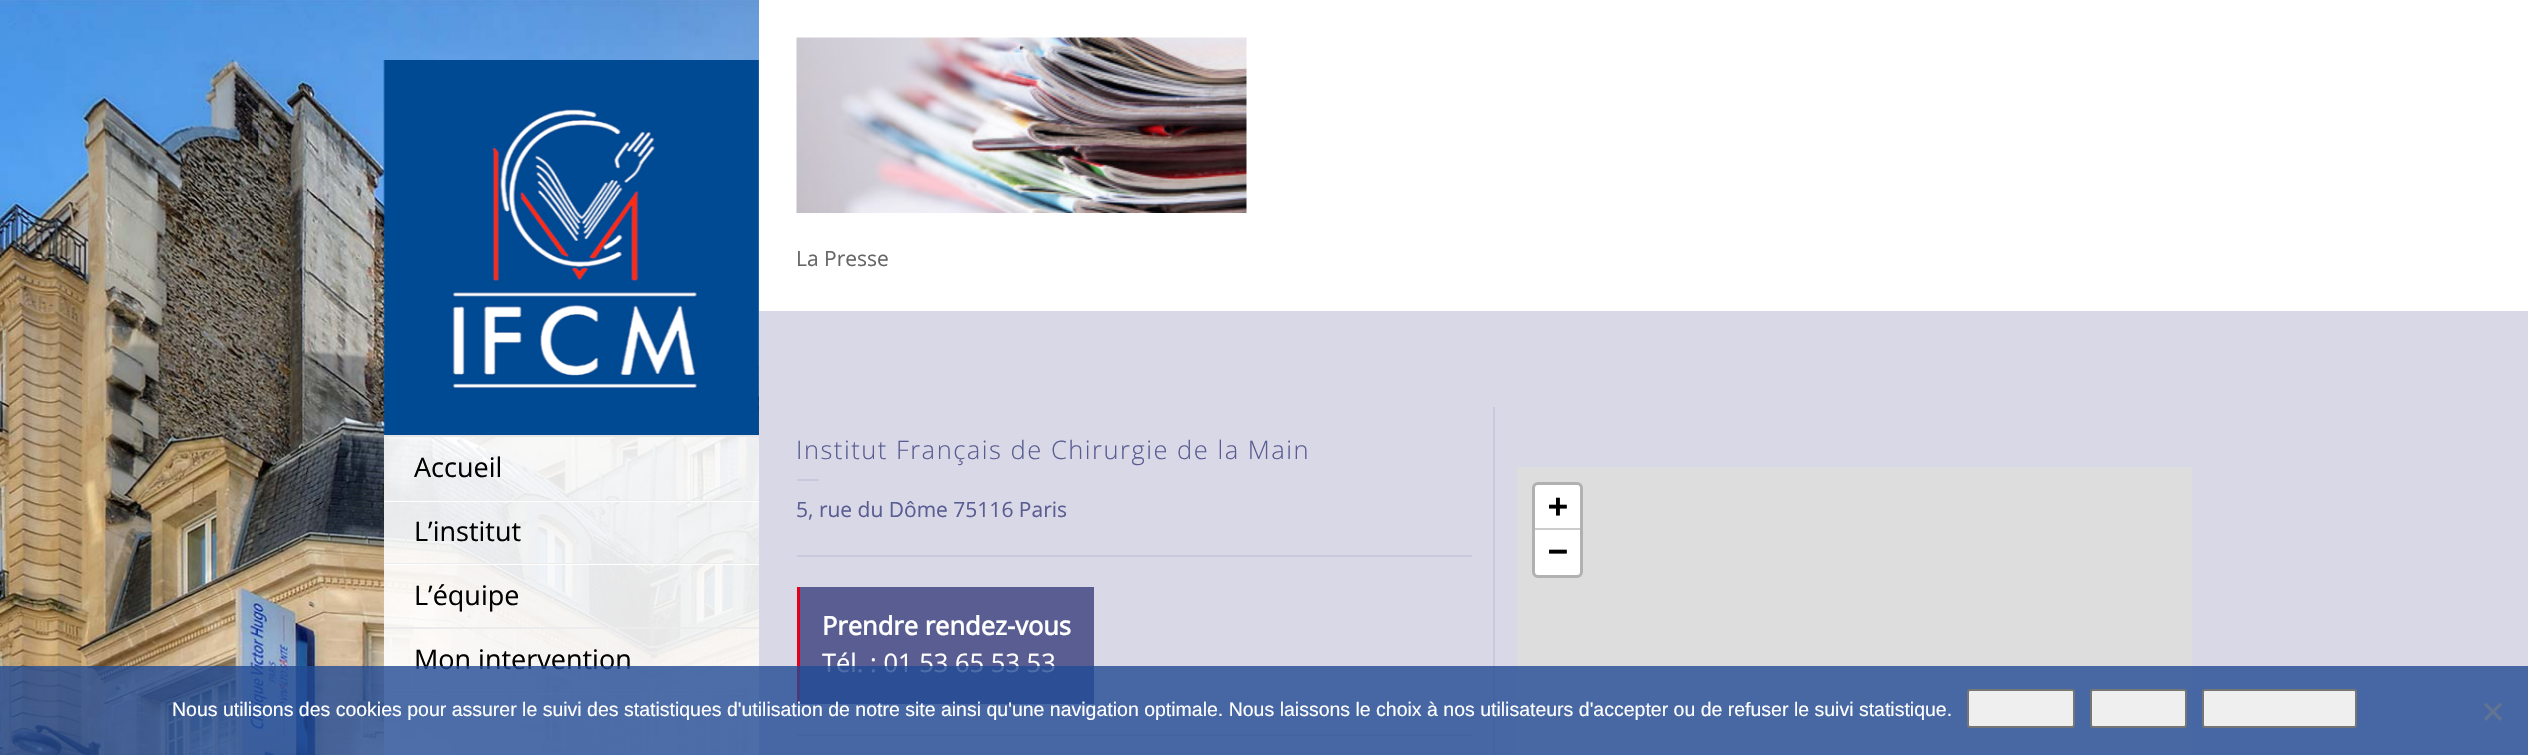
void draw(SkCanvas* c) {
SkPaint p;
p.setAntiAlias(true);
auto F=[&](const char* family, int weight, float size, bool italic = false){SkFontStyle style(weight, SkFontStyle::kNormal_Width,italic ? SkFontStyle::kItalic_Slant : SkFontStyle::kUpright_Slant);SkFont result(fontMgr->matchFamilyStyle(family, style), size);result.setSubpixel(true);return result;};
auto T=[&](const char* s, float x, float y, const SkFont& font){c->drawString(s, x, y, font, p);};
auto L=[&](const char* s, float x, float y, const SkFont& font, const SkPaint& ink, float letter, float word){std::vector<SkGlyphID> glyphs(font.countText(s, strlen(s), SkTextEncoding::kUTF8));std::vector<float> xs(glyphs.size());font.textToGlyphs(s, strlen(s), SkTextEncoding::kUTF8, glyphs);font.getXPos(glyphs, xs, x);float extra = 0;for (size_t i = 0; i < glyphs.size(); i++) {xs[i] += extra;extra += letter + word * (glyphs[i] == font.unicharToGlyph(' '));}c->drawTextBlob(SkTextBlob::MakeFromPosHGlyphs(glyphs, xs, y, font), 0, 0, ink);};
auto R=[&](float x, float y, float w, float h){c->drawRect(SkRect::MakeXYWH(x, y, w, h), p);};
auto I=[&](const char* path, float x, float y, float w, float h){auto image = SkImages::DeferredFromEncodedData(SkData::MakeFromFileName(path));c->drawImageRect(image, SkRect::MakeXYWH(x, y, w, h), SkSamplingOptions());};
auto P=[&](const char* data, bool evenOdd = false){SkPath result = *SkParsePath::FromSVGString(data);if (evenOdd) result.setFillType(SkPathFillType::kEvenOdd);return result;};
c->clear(0xffd9d8e6);
I("1.png",0,0,759,755);
p.setColor(0xffe6e6e6);
R(384,435,375,2);
I("2.png",383,60,376,375);
p.setColor(0xe6ffffff);
R(384,437,375,63);
p.setColor(0xffececec);
R(384,500,375,2);
auto f1 = F("Open Sans",400,27);
p.setColor(0xff000000);
T("Accueil",414,477,f1);
p.setColor(0xe6ffffff);
R(384,501,375,62);
p.setColor(0xffececec);
R(384,563,375,2);
p.setColor(0xff000000);
T("L’institut",414,541,f1);
p.setColor(0xe6ffffff);
R(384,564,375,63);
p.setColor(0xffececec);
R(384,627,375,2);
p.setColor(0xff000000);
T("L’équipe",414,605,f1);
p.setColor(0xe6ffffff);
R(384,629,375,63);
p.setColor(0xffececec);
R(384,692,375,2);
p.setColor(0xff000000);
T("Mon intervention",414,669,f1);
p.setColor(0xe6ffffff);
R(384,693,375,62);
p.setColor(0xffffffff);
R(759,0,1769,311);
I("3.png",796,37,451,176);
auto f2 = F("Open Sans",400,21);
p.setColor(0xff666666);
T("La Presse",796,266,f2);
auto f3 = F("Open Sans",300,25.5);
p.setColor(0xff595d92);
L("Institut Français de Chirurgie de la Main",796,459,f3,p,1.5,0);
p.setColor(0xffc9c8dc);
R(797,479,22,2);
p.setColor(0xff595d92);
T("5, rue du Dôme 75116 Paris",796,517,f2);
p.setColor(0xffc9c8dc);
R(797,555,675,2);
p.setColor(0xff595d92);
R(800,587,294,117);
p.setColor(0xffe2001a);
R(797,587,3,117);
auto f4 = F("Open Sans",700,25.5);
p.setColor(0xffffffff);
T("Prendre rendez-vous",822,635,f4);
auto f5 = F("Open Sans",400,25.5);
T("Tél. : 01 53 65 53 53",822,672,f5);
p.setColor(0xffc9c8dc);
R(797,734,675,2);
R(1493,407,2,348);
p.setColor(0xffdddddd);
R(1517,467,675,288);
p.setStroke(true);
p.setStrokeWidth(3);
p.setColor(0xffb1b1b1);
c->drawRoundRect(SkRect::MakeXYWH(1533.5,483.5,48,93),4.5,4.5,p);
p.setStroke(false);
p.setColor(0xffffffff);
c->drawPath(P("M1538 485h39c1.5 0 3 1.5 3 3v42h-45v-42c0-1.5 1.5-3 3-3z"),p);
p.setColor(0xffcccccc);
R(1535,528,45,2);
auto f6 = F("DejaVu Sans Mono",700,33);
p.setColor(0xff000000);
T("+",1548,517,f6);
p.setColor(0xffffffff);
c->drawPath(P("M1535 530h45v42c0 1.5-1.5 3-3 3h-39c-1.5 0-3-1.5-3-3z"),p);
p.setColor(0xff000000);
T("−",1548,562,f6);
p.setColor(0xcc204a94);
R(0,666,2528,89);
auto f7 = F("Liberation Sans",400,19.5);
p.setColor(0xffffffff);
T("Nous utilisons des cookies pour assurer le suivi des statistiques d'utilisation de notre site ainsi qu'une navigation optimale. Nous laissons le choix à nos utilisateurs d'accepter ou de refuser le suivi statistique.",172,716,f7);
p.setColor(0xffefefef);
c->drawRoundRect(SkRect::MakeXYWH(1968,690,106,37),2,2,p);
p.setStroke(true);
p.setStrokeWidth(2);
p.setColor(0xff767676);
c->drawRoundRect(SkRect::MakeXYWH(1968,690,106,37),2,2,p);
p.setStroke(false);
p.setColor(0xffefefef);
c->drawRoundRect(SkRect::MakeXYWH(2091,690,95,37),2,2,p);
p.setStroke(true);
p.setColor(0xff767676);
c->drawRoundRect(SkRect::MakeXYWH(2091,690,95,37),2,2,p);
p.setStroke(false);
p.setColor(0xffefefef);
c->drawRoundRect(SkRect::MakeXYWH(2203,690,153,37),2,2,p);
p.setStroke(true);
p.setColor(0xff767676);
c->drawRoundRect(SkRect::MakeXYWH(2203,690,153,37),2,2,p);
p.setStroke(false);
p.setColor(0xff637392);
c->drawPath(P("M2500 702.5l2 2.5l-16 16l-2-2.5z"),p);
c->drawPath(P("M2484 705l2-2.5l16 16l-2 2.5z"),p);
}
